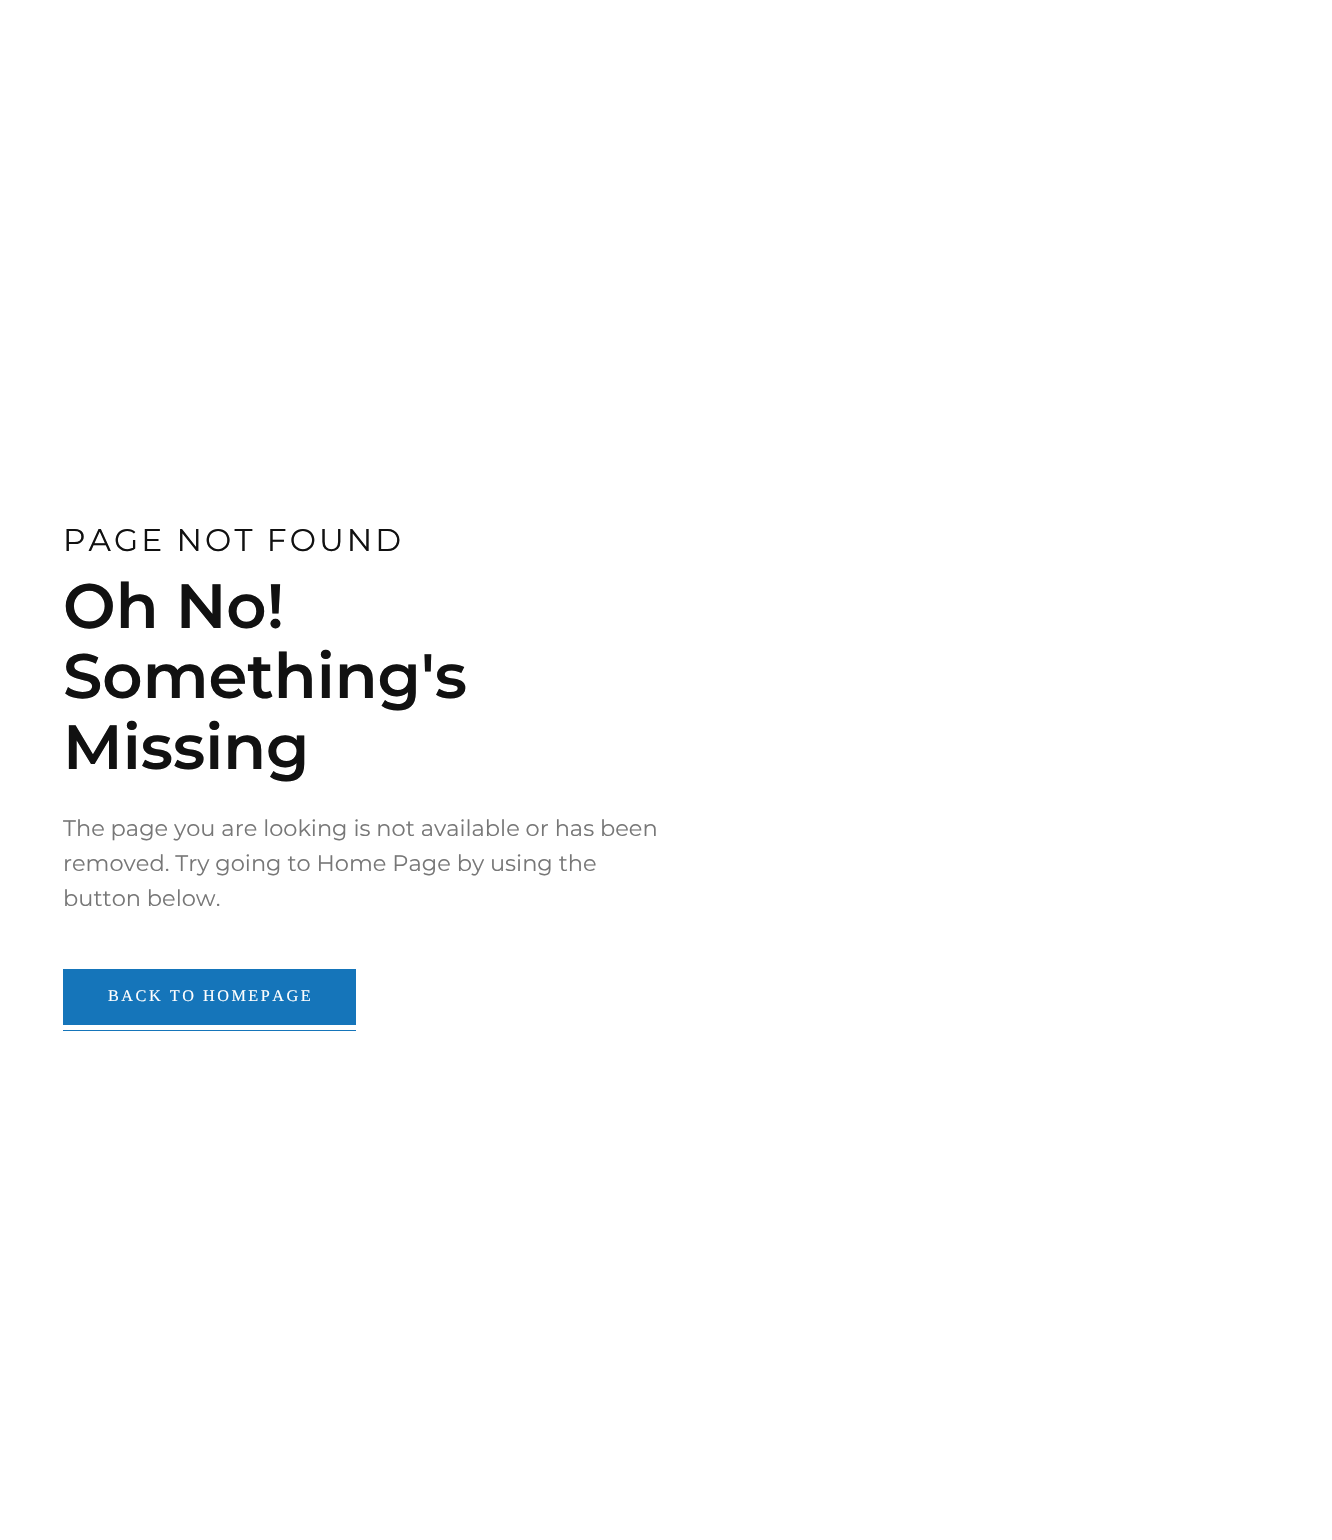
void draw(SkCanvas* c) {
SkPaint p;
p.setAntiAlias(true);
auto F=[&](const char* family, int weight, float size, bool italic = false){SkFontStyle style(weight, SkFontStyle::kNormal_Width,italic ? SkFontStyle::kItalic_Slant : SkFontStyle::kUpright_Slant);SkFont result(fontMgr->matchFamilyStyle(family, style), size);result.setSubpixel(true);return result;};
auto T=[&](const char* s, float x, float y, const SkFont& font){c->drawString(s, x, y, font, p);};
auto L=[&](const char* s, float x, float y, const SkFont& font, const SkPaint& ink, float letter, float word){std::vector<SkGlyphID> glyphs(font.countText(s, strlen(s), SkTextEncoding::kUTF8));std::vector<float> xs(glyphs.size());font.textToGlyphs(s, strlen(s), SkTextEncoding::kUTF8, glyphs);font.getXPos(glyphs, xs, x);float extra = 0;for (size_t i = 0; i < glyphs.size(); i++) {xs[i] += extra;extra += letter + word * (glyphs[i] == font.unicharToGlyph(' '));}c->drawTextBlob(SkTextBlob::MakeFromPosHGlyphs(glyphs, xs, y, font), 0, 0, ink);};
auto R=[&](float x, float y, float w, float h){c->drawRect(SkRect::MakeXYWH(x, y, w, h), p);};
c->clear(0xffffffff);
auto f1 = F("Montserrat",400,31.25);
p.setColor(0xff111111);
L("PAGE NOT FOUND",63,551,f1,p,3.1,0);
auto f2 = F("Montserrat",600,62.5);
T("Oh No!",63,628,f2);
T("Something's",63,698,f2);
T("Missing",63,769,f2);
auto f3 = F("Montserrat",400,22.5);
p.setColor(0xff777777);
T("The page you are looking is not available or has been",63,836,f3);
T("removed. Try going to Home Page by using the",63,871,f3);
T("button below.",63,906,f3);
p.setColor(0xff1575ba);
R(63,969,293,56);
auto f4 = F("Liberation Serif",400,16.25);
p.setColor(0xffffffff);
L("BACK TO HOMEPAGE",108,1001,f4,p,2.5,0);
p.setColor(0xff1575ba);
R(63,1030,293,1);
}
